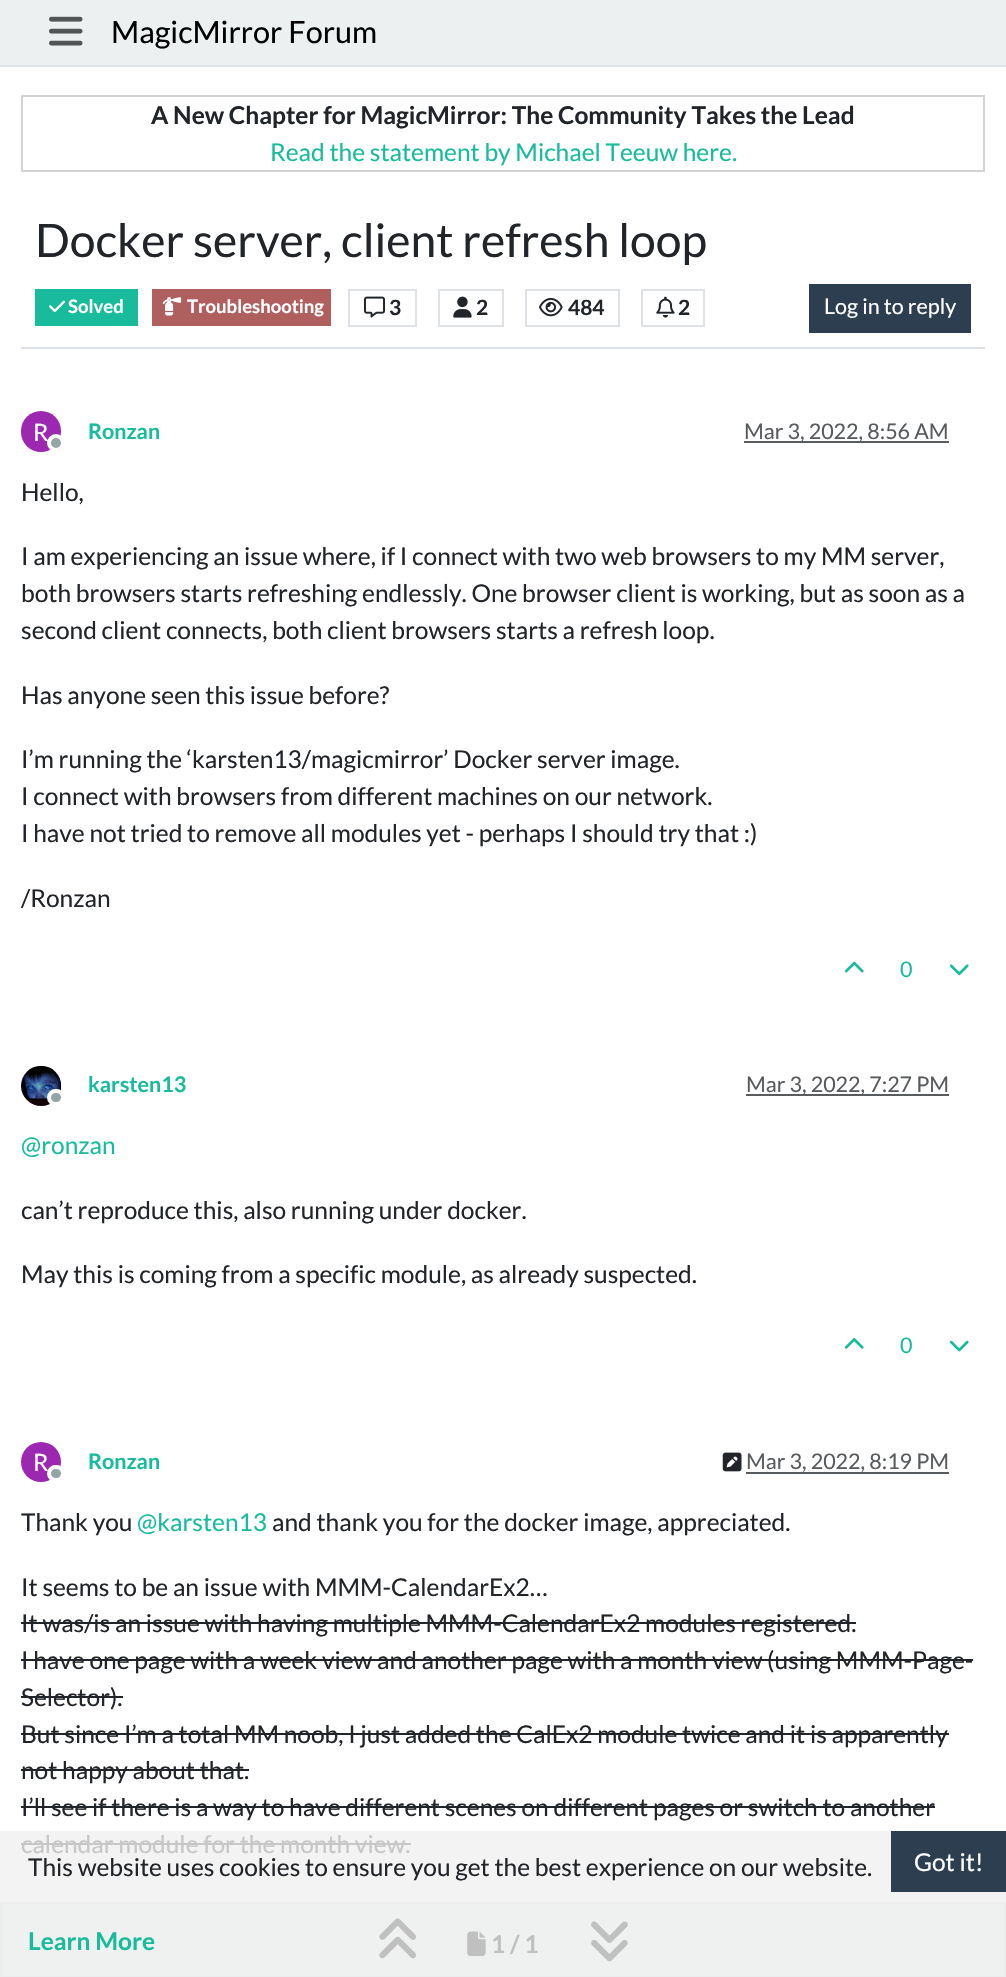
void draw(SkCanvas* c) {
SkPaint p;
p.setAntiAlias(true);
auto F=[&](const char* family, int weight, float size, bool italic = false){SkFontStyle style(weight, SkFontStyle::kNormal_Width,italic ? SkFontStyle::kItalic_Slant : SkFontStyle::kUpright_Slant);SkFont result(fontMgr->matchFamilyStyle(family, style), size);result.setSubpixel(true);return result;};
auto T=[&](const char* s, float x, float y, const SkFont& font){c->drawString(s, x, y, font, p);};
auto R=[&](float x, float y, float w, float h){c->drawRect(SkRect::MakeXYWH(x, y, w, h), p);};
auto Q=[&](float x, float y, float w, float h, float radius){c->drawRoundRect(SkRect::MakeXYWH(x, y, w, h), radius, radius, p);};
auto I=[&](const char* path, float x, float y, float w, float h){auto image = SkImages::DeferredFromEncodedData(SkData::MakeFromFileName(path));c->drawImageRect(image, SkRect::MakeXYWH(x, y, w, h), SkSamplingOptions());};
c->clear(0xffffffff);
p.setColor(0xfff3f3f3);
R(0,1831,1006,71);
p.setColor(0xffecf0f1);
R(0,0,1006,65);
p.setColor(0xffdee2e6);
R(0,65,1006,2);
I("1.png",49,16,34,30);
auto f1 = F("Lato",400,30.6);
p.setColor(0xff000000);
T("MagicMirror Forum",111,43,f1);
p.setStroke(true);
p.setStrokeWidth(2);
p.setColor(0xffd3d3d3);
c->drawRect(SkRect::MakeXYWH(22,96,962,75),p);
auto f2 = F("Lato",700,24.5);
p.setStroke(false);
p.setColor(0xff212529);
T("A New Chapter for MagicMirror: The Community Takes the Lead",151,124,f2);
auto f3 = F("Lato",400,24.5);
p.setColor(0xff18bc9c);
T("Read the statement by Michael Teeuw here.",270,161,f3);
p.setColor(0xffdee2e6);
R(21,347,964,2);
auto f4 = F("Lato",400,46.2);
p.setColor(0xff212529);
T("Docker server, client refresh loop",35,257,f4);
p.setColor(0xff18bc9c);
R(35,289,103,37);
I("2.png",49,300,17,13);
auto f5 = F("Lato",700,18.5);
p.setColor(0xffffffff);
T("Solved",68,313,f5);
p.setColor(0xffb05f5f);
R(152,289,179,37);
I("3.png",162,297,20,19);
p.setColor(0xffffffff);
T("Troubleshooting",187,313,f5);
p.setStroke(true);
p.setColor(0xffdee2e6);
c->drawRect(SkRect::MakeXYWH(349,290,67,36),p);
I("4.png",364,296,21,22);
auto f6 = F("Lato",700,21);
p.setStroke(false);
p.setColor(0xff212529);
T("3",389,315,f6);
p.setStroke(true);
p.setColor(0xffdee2e6);
c->drawRect(SkRect::MakeXYWH(439,290,64,36),p);
I("5.png",453,296,19,22);
p.setStroke(false);
p.setColor(0xff212529);
T("2",476,315,f6);
p.setStroke(true);
p.setColor(0xffdee2e6);
c->drawRect(SkRect::MakeXYWH(526,290,93,36),p);
I("6.png",539,297,24,20);
p.setStroke(false);
p.setColor(0xff212529);
T("484",568,315,f6);
p.setStroke(true);
p.setColor(0xffdee2e6);
c->drawRect(SkRect::MakeXYWH(642,290,62,36),p);
I("7.png",656,296,19,22);
p.setStroke(false);
p.setColor(0xff212529);
T("2",678,315,f6);
p.setColor(0xff2c3e50);
R(809,284,162,49);
auto f7 = F("Lato",400,21.5);
p.setColor(0xffffffff);
T("Log in to reply",824,314,f7);
p.setColor(0xff9c27b0);
Q(21,411,40,41,20);
auto f8 = F("Lato",400,24);
p.setColor(0xffffffff);
T("R",33,441,f8);
p.setColor(0xff95a5a6);
c->drawCircle(56,443,7,p);
p.setStroke(true);
p.setStrokeWidth(4);
p.setColor(0xffffffff);
c->drawCircle(56,443,7,p);
auto f9 = F("Lato",700,21.5);
p.setStroke(false);
p.setColor(0xff18bc9c);
T("Ronzan",88,439,f9);
p.setColor(0xff595c5f);
R(744,441,205,2);
p.setColor(0xff585b5e);
T("Mar 3, 2022, 8:56 AM",744,439,f7);
p.setColor(0xff212529);
T("Hello,",21,501,f3);
T("I am experiencing an issue where, if I connect with two web browsers to my MM server,",21,565,f3);
T("both browsers starts refreshing endlessly. One browser client is working, but as soon as a",21,602,f3);
T("second client connects, both client browsers starts a refresh loop.",21,639,f3);
T("Has anyone seen this issue before?",21,704,f3);
T("I’m running the ‘karsten13/magicmirror’ Docker server image.",21,768,f3);
T("I connect with browsers from different machines on our network.",21,805,f3);
T("I have not tried to remove all modules yet - perhaps I should try that :)",21,842,f3);
T("/Ronzan",21,907,f3);
I("8.png",844,961,20,12);
p.setColor(0xff18bc9c);
T("0",900,977,f7);
I("9.png",949,964,20,12);
I("10.png",21,1065,41,41);
p.setColor(0xff95a5a6);
c->drawRoundRect(SkRect::MakeXYWH(49,1091,14,13),6.5,6.5,p);
p.setStroke(true);
p.setColor(0xffffffff);
c->drawRoundRect(SkRect::MakeXYWH(49,1091,14,13),6.5,6.5,p);
p.setStroke(false);
p.setColor(0xff18bc9c);
T("karsten13",88,1092,f9);
p.setColor(0xff595c5f);
R(746,1094,203,2);
p.setColor(0xff585b5e);
T("Mar 3, 2022, 7:27 PM",746,1092,f7);
p.setColor(0xff18bc9c);
T("@ronzan",21,1154,f3);
p.setColor(0xff212529);
T("can’t reproduce this, also running under docker.",21,1219,f3);
T("May this is coming from a specific module, as already suspected.",21,1283,f3);
I("11.png",844,1338,20,11);
p.setColor(0xff18bc9c);
T("0",900,1353,f7);
I("12.png",949,1340,20,12);
p.setColor(0xff9c27b0);
c->drawCircle(41,1462,20,p);
p.setColor(0xffffffff);
T("R",33,1471,f8);
p.setColor(0xff95a5a6);
c->drawRoundRect(SkRect::MakeXYWH(49,1467,14,13),6.5,6.5,p);
p.setStroke(true);
p.setColor(0xffffffff);
c->drawRoundRect(SkRect::MakeXYWH(49,1467,14,13),6.5,6.5,p);
p.setStroke(false);
p.setColor(0xff18bc9c);
T("Ronzan",88,1469,f9);
I("13.png",722,1452,20,20);
p.setColor(0xff585b5e);
T("Mar 3, 2022, 8:19 PM",746,1469,f7);
p.setColor(0xff595c5f);
R(746,1472,203,2);
p.setColor(0xff212529);
T("Thank you",21,1531,f3);
p.setColor(0xff18bc9c);
T("@karsten13",137,1531,f3);
p.setColor(0xff212529);
T("and thank you for the docker image, appreciated.",272,1531,f3);
T("It seems to be an issue with MMM-CalendarEx2…",21,1596,f3);
T("It was/is an issue with having multiple MMM-CalendarEx2 modules registered.",21,1632,f3);
R(21,1622,835,2);
T("I have one page with a week view and another page with a month view (using MMM-Page-",21,1669,f3);
R(21,1659,952,2);
T("Selector).",21,1706,f3);
R(21,1696,102,2);
T("But since I’m a total MM noob, I just added the CalEx2 module twice and it is apparently",21,1743,f3);
R(21,1733,928,2);
T("not happy about that.",21,1779,f3);
R(21,1769,228,2);
T("I’ll see if there is a way to have different scenes on different pages or switch to another",21,1816,f3);
R(21,1806,914,2);
p.setColor(0xffc7c7c8);
T("calendar module for the month view.",21,1853,f3);
R(21,1843,390,2);
p.setColor(0xffeff0f0);
c->drawRect(SkRect::MakeXYWH(1,1903,1004,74),p);
p.setStroke(true);
p.setStrokeWidth(2);
p.setColor(0xffecedee);
c->drawRect(SkRect::MakeXYWH(1,1903,1004,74),p);
I("14.png",379,1918,37,41);
I("15.png",467,1931,19,26);
p.setStroke(false);
p.setColor(0xffc0c0c0);
T("1 / 1",491,1953,f2);
I("16.png",591,1921,37,41);
p.setColor(0xff212529);
T("This website uses cookies to ensure you get the best experience on our website.",28,1876,f3);
p.setColor(0xff2c3e50);
R(891,1831,115,61);
p.setColor(0xffffffff);
T("Got it!",914,1871,f3);
p.setColor(0xff18bc9c);
T("Learn More",28,1950,f2);
}
